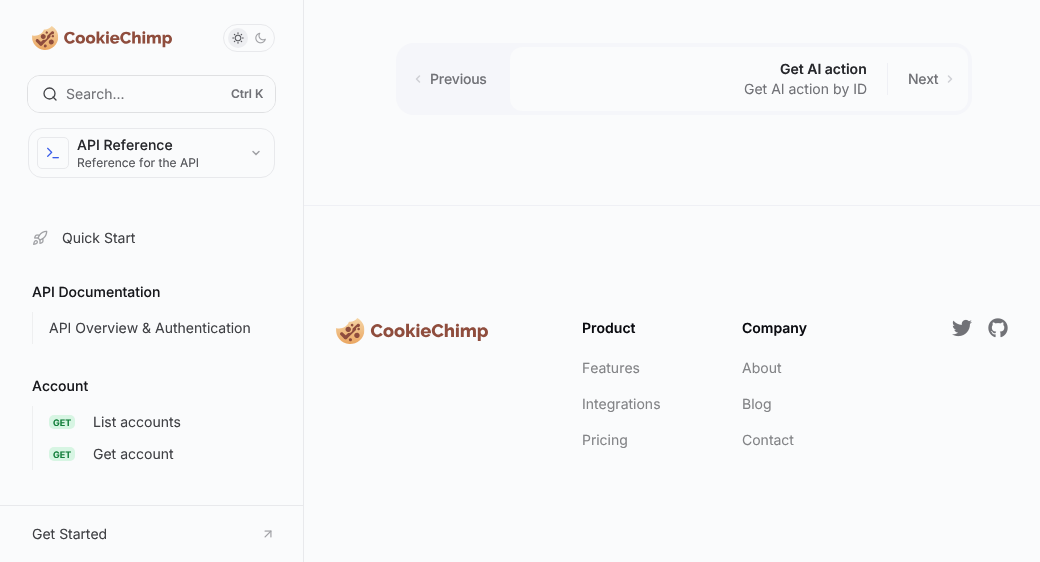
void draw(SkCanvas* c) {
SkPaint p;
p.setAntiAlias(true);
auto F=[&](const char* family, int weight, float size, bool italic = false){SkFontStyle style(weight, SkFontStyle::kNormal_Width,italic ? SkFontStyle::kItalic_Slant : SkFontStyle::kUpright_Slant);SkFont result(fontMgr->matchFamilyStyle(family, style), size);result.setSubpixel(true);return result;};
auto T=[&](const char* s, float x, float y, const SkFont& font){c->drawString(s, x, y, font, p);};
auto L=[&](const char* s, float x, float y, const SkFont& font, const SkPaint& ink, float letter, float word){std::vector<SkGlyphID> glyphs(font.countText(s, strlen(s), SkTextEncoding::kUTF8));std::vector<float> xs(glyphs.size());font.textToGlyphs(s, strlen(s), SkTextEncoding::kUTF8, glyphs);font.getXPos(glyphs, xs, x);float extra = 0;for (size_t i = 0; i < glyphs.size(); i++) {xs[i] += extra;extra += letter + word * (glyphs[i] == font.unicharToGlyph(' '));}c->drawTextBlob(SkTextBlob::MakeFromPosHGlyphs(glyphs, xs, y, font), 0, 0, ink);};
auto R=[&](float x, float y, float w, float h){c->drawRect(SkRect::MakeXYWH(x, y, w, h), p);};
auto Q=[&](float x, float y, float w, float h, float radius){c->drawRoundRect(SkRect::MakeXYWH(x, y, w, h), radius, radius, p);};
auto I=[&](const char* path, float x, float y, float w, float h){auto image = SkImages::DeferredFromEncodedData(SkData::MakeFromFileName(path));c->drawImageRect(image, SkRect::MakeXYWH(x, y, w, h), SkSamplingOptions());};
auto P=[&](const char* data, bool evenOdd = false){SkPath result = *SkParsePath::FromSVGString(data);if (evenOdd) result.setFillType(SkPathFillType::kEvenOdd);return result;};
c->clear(0xfffafbfc);
p.setColor(0xfff5f6fa);
Q(396,43,576,72,18);
p.setStroke(true);
p.setStrokeWidth(1.5);
p.setStrokeCap(SkPaint::kRound_Cap);
p.setStrokeJoin(SkPaint::kRound_Join);
p.setColor(0xffcfd0d5);
c->drawPath(P("M419.5 82l-3-3l3-3"),p);
auto f1 = F("Inter",500,14);
p.setStroke(false);
p.setColor(0xff717277);
L("Previous",430,84,f1,p,-.25,0);
p.setColor(0xfffafbfc);
Q(510,47,458,64,12);
auto f2 = F("Inter",600,14);
p.setColor(0xff27282c);
T("Get AI action",780,74,f2);
auto f3 = F("Inter",400,14);
p.setColor(0xff717277);
T("Get AI action by ID",744,94,f3);
p.setColor(0xffeff0f5);
R(887,63,1,32);
p.setColor(0xff717277);
L("Next",908,84,f1,p,-.25,0);
p.setStroke(true);
p.setColor(0xffcfd0d5);
c->drawPath(P("M948.5 82l3-3l-3-3"),p);
p.setStroke(false);
p.setColor(0xffe8e9ec);
R(303,0,1,562);
I("1.png",32,26,140,24);
p.setStroke(true);
p.setStrokeWidth(1);
p.setStrokeCap(SkPaint::kButt_Cap);
p.setStrokeJoin(SkPaint::kMiter_Join);
c->drawRoundRect(SkRect::MakeXYWH(223.5,24.5,51,27),13.5,13.5,p);
p.setStroke(false);
p.setColor(0xffedeef1);
c->drawCircle(238,38,10,p);
I("2.png",232,32,12,12);
I("3.png",255,32,11,12);
p.setStroke(true);
p.setColor(0xffdfe0e2);
c->drawRoundRect(SkRect::MakeXYWH(27.5,75.5,248,37),12.5,12.5,p);
p.setStroke(false);
p.setColor(0xfffafbfc);
Q(28,76,247,36,12);
p.setStroke(true);
p.setStrokeWidth(1.3);
p.setColor(0xff404145);
c->drawCircle(49.5,93.5,5.5,p);
p.setStrokeCap(SkPaint::kRound_Cap);
p.setStrokeJoin(SkPaint::kRound_Join);
c->drawPath(P("M56 100l-3-3"),p);
p.setStroke(false);
p.setColor(0xff717277);
T("Search...",66,99,f3);
auto f4 = F("Inter",600,12);
T("Ctrl K",231,98,f4);
p.setStroke(true);
p.setStrokeWidth(1);
p.setStrokeCap(SkPaint::kButt_Cap);
p.setStrokeJoin(SkPaint::kMiter_Join);
p.setColor(0xffe8e9ec);
c->drawRoundRect(SkRect::MakeXYWH(28.5,128.5,246,49),13.5,13.5,p);
c->drawRoundRect(SkRect::MakeXYWH(37.5,137.5,31,31),4.5,4.5,p);
I("4.png",47,147,12,12);
p.setStroke(false);
p.setColor(0xff27282c);
T("API Reference",77,150,f1);
auto f5 = F("Inter",400,12);
p.setColor(0xff515257);
T("Reference for the API",77,167,f5);
p.setStroke(true);
p.setStrokeWidth(1.5);
p.setStrokeCap(SkPaint::kRound_Cap);
p.setColor(0xffa0a1a5);
c->drawPath(P("M259 151.5l-3 3l-3-3"),p);
I("5.png",33,230,15,15);
p.setStroke(false);
p.setColor(0xff404145);
T("Quick Start",62,243,f3);
p.setColor(0xff18191d);
T("API Documentation",32,297,f1);
p.setColor(0xffeeeff0);
R(32,312,1,32);
p.setColor(0xff404145);
T("API Overview & Authentication",49,333,f3);
p.setColor(0xff18191d);
T("Account",32,391,f1);
p.setColor(0xffeeeff0);
R(32,406,1,64);
p.setColor(0xffd7f5e3);
Q(49,415,26,14,5);
auto f6 = F("Inter",700,9);
p.setColor(0xff15803d);
T("GET",53,426,f6);
p.setColor(0xff404145);
T("List accounts",93,427,f3);
p.setColor(0xffd7f5e3);
Q(49,447,26,14,5);
p.setColor(0xff15803d);
T("GET",53,458,f6);
p.setColor(0xff404145);
T("Get account",93,459,f3);
p.setColor(0xffe8e9ec);
R(0,505,303,1);
p.setColor(0xff404145);
T("Get Started",32,539,f3);
I("6.png",264,530,8,8);
p.setColor(0xffeff0f5);
R(304,205,736,1);
I("7.png",336,318,152,26);
p.setColor(0xff0b0c11);
T("Product",582,333,f2);
p.setColor(0xff838487);
T("Features",582,373,f3);
T("Integrations",582,409,f3);
T("Pricing",582,445,f3);
p.setColor(0xff0b0c11);
T("Company",742,333,f2);
p.setColor(0xff838487);
T("About",742,373,f3);
T("Blog",742,409,f3);
T("Contact",742,445,f3);
I("8.png",952,319,20,18);
I("9.png",988,318,20,20);
}
